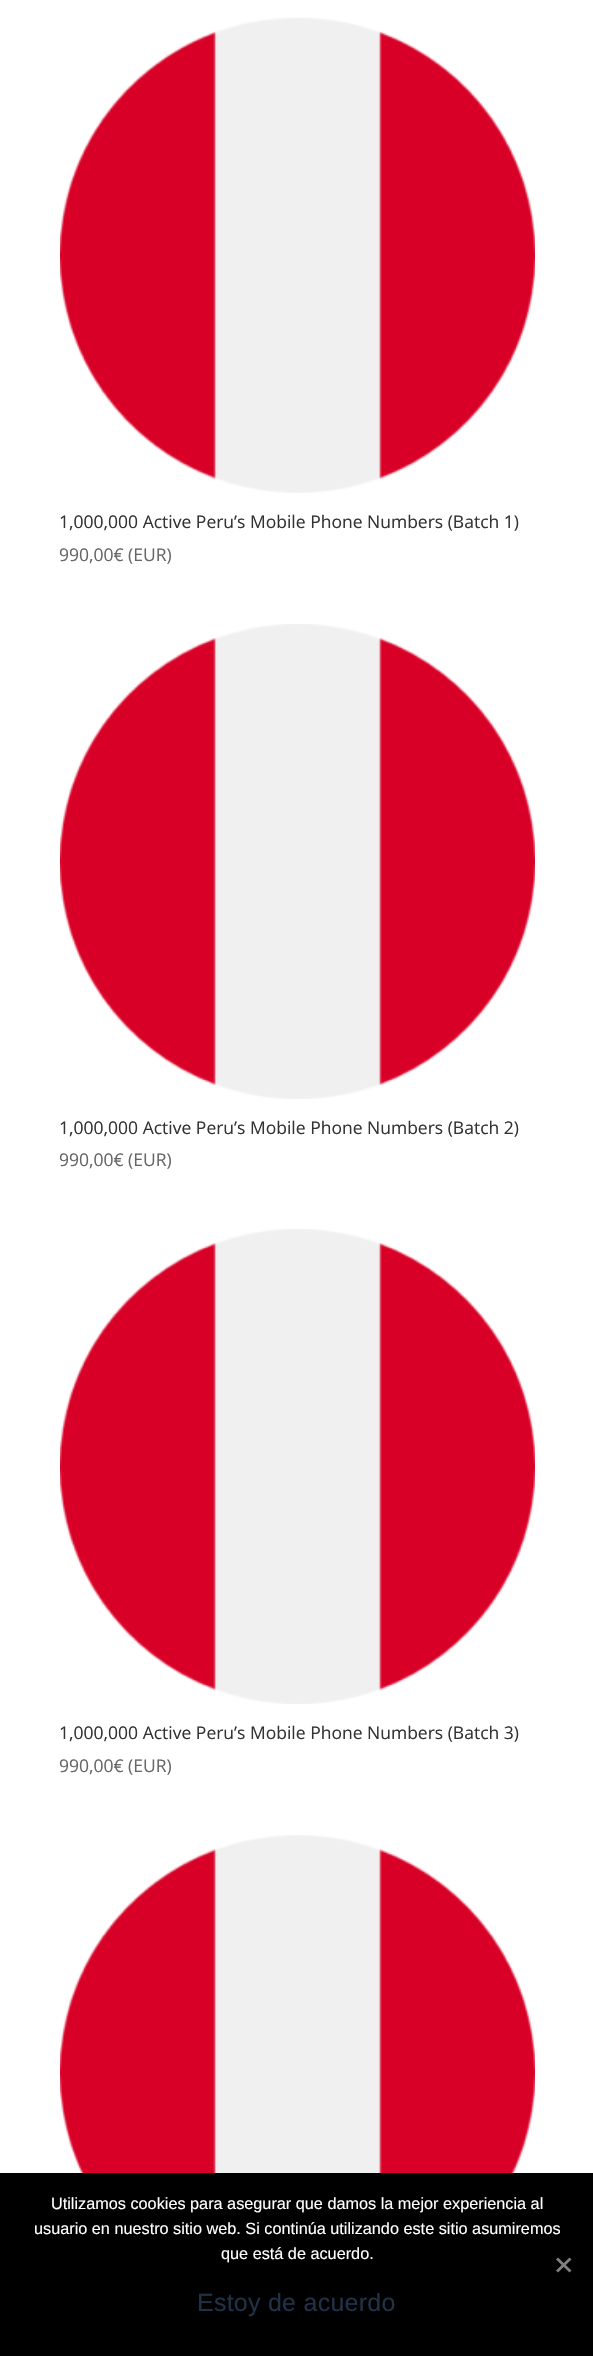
void draw(SkCanvas* c) {
SkPaint p;
p.setAntiAlias(true);
auto F=[&](const char* family, int weight, float size, bool italic = false){SkFontStyle style(weight, SkFontStyle::kNormal_Width,italic ? SkFontStyle::kItalic_Slant : SkFontStyle::kUpright_Slant);SkFont result(fontMgr->matchFamilyStyle(family, style), size);result.setSubpixel(true);return result;};
auto T=[&](const char* s, float x, float y, const SkFont& font){c->drawString(s, x, y, font, p);};
auto L=[&](const char* s, float x, float y, const SkFont& font, const SkPaint& ink, float letter, float word){std::vector<SkGlyphID> glyphs(font.countText(s, strlen(s), SkTextEncoding::kUTF8));std::vector<float> xs(glyphs.size());font.textToGlyphs(s, strlen(s), SkTextEncoding::kUTF8, glyphs);font.getXPos(glyphs, xs, x);float extra = 0;for (size_t i = 0; i < glyphs.size(); i++) {xs[i] += extra;extra += letter + word * (glyphs[i] == font.unicharToGlyph(' '));}c->drawTextBlob(SkTextBlob::MakeFromPosHGlyphs(glyphs, xs, y, font), 0, 0, ink);};
auto R=[&](float x, float y, float w, float h){c->drawRect(SkRect::MakeXYWH(x, y, w, h), p);};
auto I=[&](const char* path, float x, float y, float w, float h){auto image = SkImages::DeferredFromEncodedData(SkData::MakeFromFileName(path));c->drawImageRect(image, SkRect::MakeXYWH(x, y, w, h), SkSamplingOptions());};
auto P=[&](const char* data, bool evenOdd = false){SkPath result = *SkParsePath::FromSVGString(data);if (evenOdd) result.setFillType(SkPathFillType::kEvenOdd);return result;};
c->clear(0xffffffff);
I("1.png",60,17,475,476);
auto f1 = F("Open Sans",400,17.5);
p.setColor(0xff333333);
T("1,000,000 Active Peru’s Mobile Phone Numbers (Batch 1)",59,528,f1);
p.setColor(0xff666666);
T("990,00€ (EUR)",59,561,f1);
I("2.png",60,624,475,475);
p.setColor(0xff333333);
T("1,000,000 Active Peru’s Mobile Phone Numbers (Batch 2)",59,1134,f1);
p.setColor(0xff666666);
T("990,00€ (EUR)",59,1166,f1);
I("2.png",60,1229,475,475);
p.setColor(0xff333333);
T("1,000,000 Active Peru’s Mobile Phone Numbers (Batch 3)",59,1739,f1);
p.setColor(0xff666666);
T("990,00€ (EUR)",59,1772,f1);
I("3.png",60,1835,475,338);
p.setColor(0xff000000);
R(0,2173,593,183);
auto f2 = F("Liberation Sans",400,16.25);
p.setColor(0xffffffff);
T("Utilizamos cookies para asegurar que damos la mejor experiencia al",51,2209,f2);
T("usuario en nuestro sitio web. Si continúa utilizando este sitio asumiremos",34,2234,f2);
T("que está de acuerdo.",221,2259,f2);
p.setColor(0xff808080);
c->drawPath(P("M569.5 2257.5l2 2l-13.5 13l-2-2z"),p);
c->drawPath(P("M556 2259.5l2-2l13.5 13l-2 2z"),p);
auto f3 = F("Liberation Sans",400,25);
p.setColor(0xff203248);
L("Estoy de acuerdo",197,2311,f3,p,.25,0);
}
